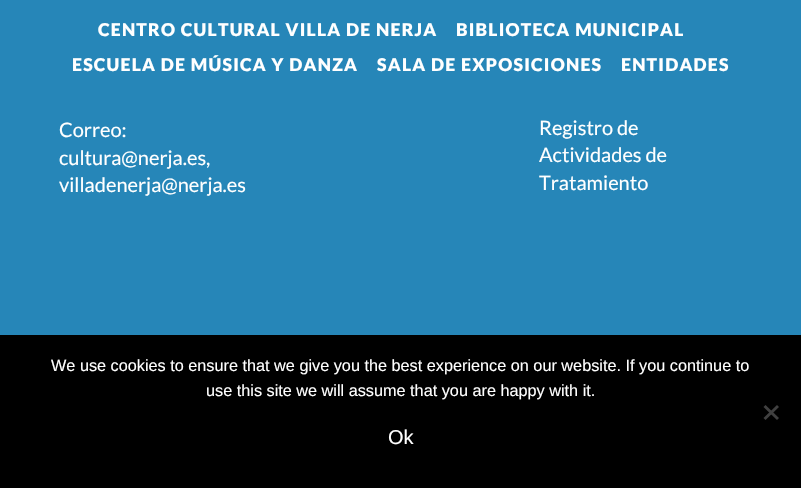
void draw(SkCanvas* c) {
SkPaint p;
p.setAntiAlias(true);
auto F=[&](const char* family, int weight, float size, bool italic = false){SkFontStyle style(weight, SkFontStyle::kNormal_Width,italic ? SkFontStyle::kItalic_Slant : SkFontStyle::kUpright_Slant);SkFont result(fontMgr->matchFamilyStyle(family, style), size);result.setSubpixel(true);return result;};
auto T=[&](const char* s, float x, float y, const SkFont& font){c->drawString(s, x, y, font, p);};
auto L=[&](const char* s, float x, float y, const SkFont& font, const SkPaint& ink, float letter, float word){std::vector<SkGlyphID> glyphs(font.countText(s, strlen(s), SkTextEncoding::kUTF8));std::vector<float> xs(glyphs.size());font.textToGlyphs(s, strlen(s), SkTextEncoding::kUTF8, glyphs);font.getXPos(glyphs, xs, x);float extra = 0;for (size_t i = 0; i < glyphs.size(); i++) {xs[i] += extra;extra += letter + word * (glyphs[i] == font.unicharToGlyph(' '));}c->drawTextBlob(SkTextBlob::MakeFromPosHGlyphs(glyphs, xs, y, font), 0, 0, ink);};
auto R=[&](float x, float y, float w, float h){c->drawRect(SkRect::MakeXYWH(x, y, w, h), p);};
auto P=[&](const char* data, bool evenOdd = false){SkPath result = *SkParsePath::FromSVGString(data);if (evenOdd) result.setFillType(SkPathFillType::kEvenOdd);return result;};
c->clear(0xff2686b8);
auto f1 = F("Lato",900,17.5);
p.setColor(0xffffffff);
L("CENTRO CULTURAL VILLA DE NERJA",98,36,f1,p,1.25,0);
L("BIBLIOTECA MUNICIPAL",456,36,f1,p,1.25,0);
L("ESCUELA DE MÚSICA Y DANZA",72,71,f1,p,1.25,0);
L("SALA DE EXPOSICIONES",377,71,f1,p,1.25,0);
L("ENTIDADES",621,71,f1,p,1.25,0);
auto f2 = F("Lato",400,20);
T("Correo:",59,137,f2);
T("cultura@nerja.es,",59,165,f2);
T("villadenerja@nerja.es",59,192,f2);
T("Registro de",539,135,f2);
T("Actividades de",539,162,f2);
T("Tratamiento",539,190,f2);
p.setColor(0xff000000);
R(0,335,801,153);
auto f3 = F("Liberation Sans",400,16.25);
p.setColor(0xffffffff);
T("We use cookies to ensure that we give you the best experience on our website. If you continue to",51,371,f3);
T("use this site we will assume that you are happy with it.",206,396,f3);
p.setColor(0xff404040);
c->drawPath(P("M777 405l2 2l-13.5 13l-2-2z"),p);
c->drawPath(P("M763.5 407l2-2l13.5 13l-2 2z"),p);
auto f4 = F("Liberation Sans",400,20);
p.setColor(0xffffffff);
T("Ok",388,444,f4);
}
